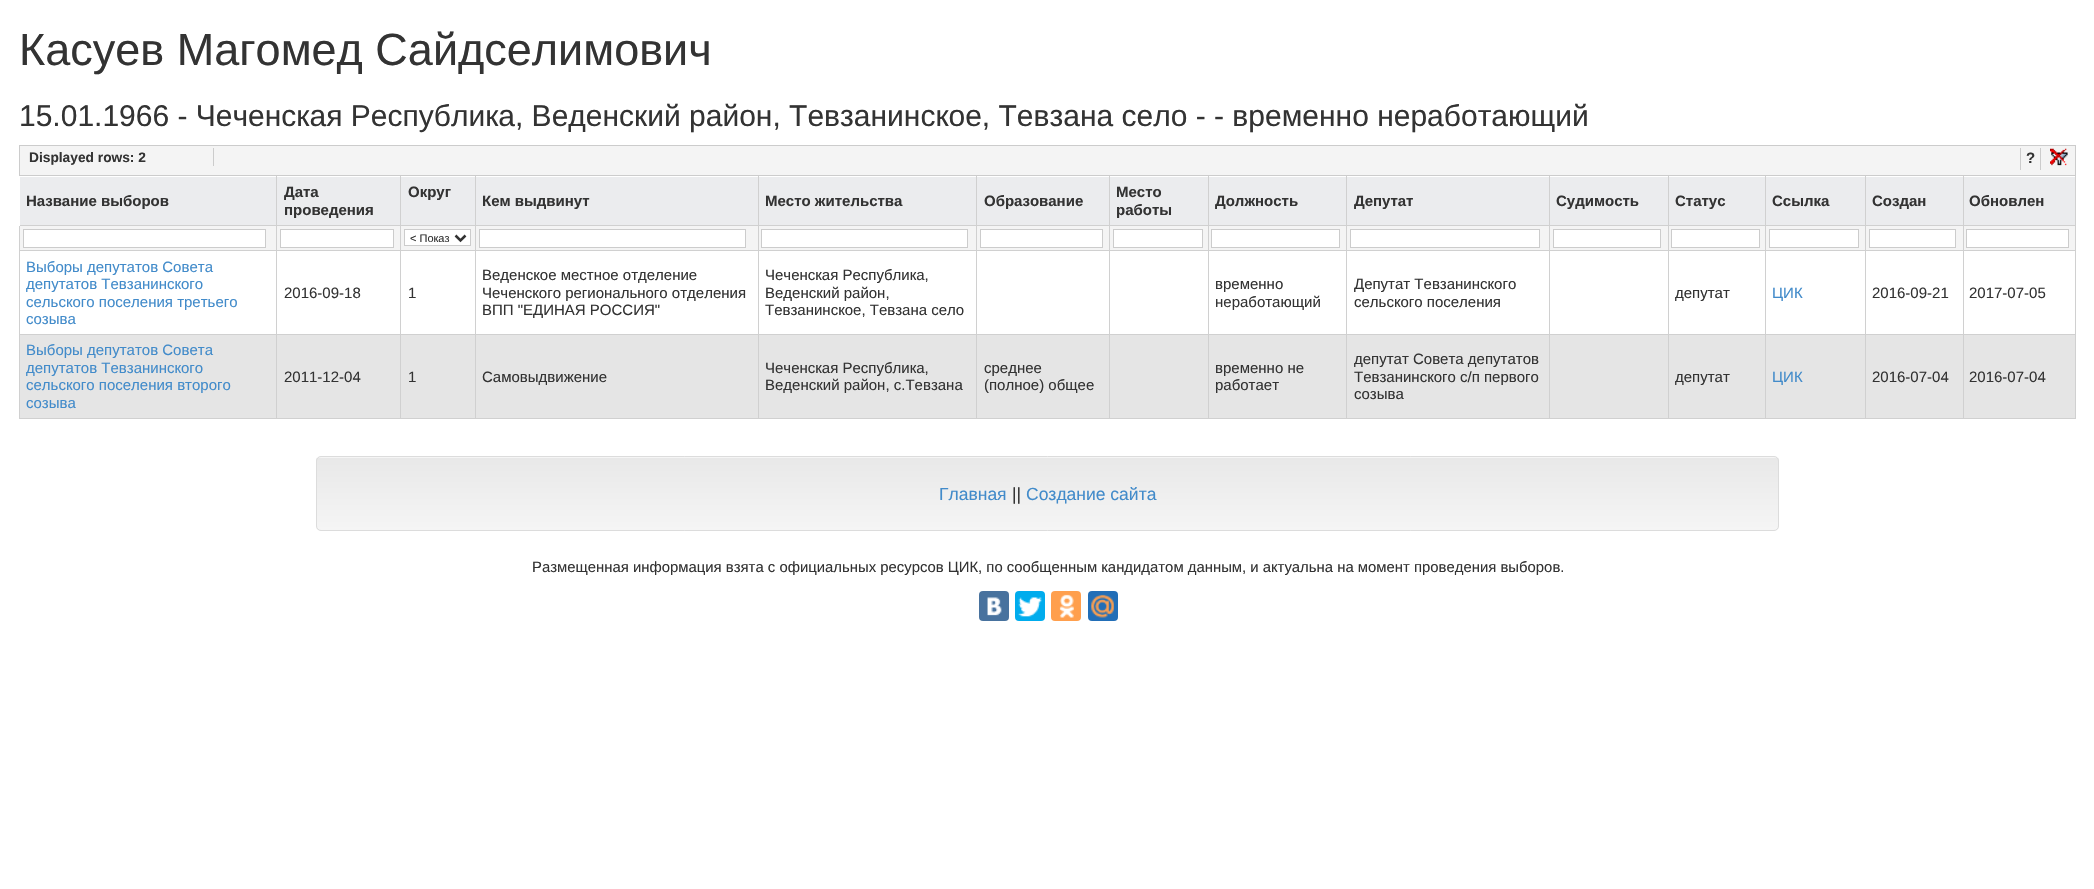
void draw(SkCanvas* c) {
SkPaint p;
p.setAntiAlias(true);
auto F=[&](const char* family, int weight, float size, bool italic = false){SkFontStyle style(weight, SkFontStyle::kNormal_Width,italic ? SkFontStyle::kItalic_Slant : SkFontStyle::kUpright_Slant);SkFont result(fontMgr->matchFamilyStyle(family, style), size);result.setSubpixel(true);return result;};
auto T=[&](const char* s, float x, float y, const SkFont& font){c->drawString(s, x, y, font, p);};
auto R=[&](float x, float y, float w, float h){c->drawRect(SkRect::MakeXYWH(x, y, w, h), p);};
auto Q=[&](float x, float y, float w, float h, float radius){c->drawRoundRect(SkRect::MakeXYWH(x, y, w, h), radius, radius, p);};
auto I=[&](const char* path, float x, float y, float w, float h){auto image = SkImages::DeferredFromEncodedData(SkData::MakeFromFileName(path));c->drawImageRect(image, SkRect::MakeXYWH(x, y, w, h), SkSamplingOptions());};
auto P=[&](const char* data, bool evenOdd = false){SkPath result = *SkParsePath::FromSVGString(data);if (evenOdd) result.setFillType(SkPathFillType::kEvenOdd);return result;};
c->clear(0xffffffff);
auto f1 = F("Liberation Sans",400,45);
p.setColor(0xff333333);
T("Касуев Магомед Сайдселимович",19,65,f1);
auto f2 = F("Liberation Sans",400,30);
T("15.01.1966 - Чеченская Республика, Веденский район, Тевзанинское, Тевзана село - - временно неработающий",19,126,f2);
p.setColor(0xfff4f4f4);
c->drawRect(SkRect::MakeXYWH(19.5,145.5,2056,30),p);
p.setStroke(true);
p.setStrokeWidth(1);
p.setColor(0xffcccccc);
c->drawRect(SkRect::MakeXYWH(19.5,145.5,2056,30),p);
p.setStroke(false);
R(213,148,1,18);
auto f3 = F("Liberation Sans",700,13.75);
p.setColor(0xff333333);
T("Displayed rows: 2",29,162,f3);
auto f4 = F("Liberation Sans",700,15);
T("?",2026,163,f4);
p.setColor(0xffcccccc);
R(2040,148,1,22);
R(2020,148,1,22);
I("1.png",2050,148,18,18);
p.setColor(0xffd0d0d0);
R(19,226,1,193);
p.setColor(0xffebecee);
R(20,177,380,48);
R(759,177,350,48);
R(1209,177,340,48);
p.setColor(0xfff4f4f4);
R(20,226,2055,24);
p.setColor(0xffe5e5e5);
R(20,335,2055,83);
p.setColor(0xffd0d0d0);
R(2075,176,1,243);
R(1963,418,113,1);
R(1963,334,1,85);
R(1963,334,113,1);
R(1963,250,1,85);
R(1963,250,113,1);
R(1963,225,1,26);
R(1963,225,113,1);
R(1963,176,1,50);
R(1865,418,99,1);
R(1865,334,1,85);
R(1865,334,99,1);
R(1865,250,1,85);
R(1865,250,99,1);
R(1865,225,1,26);
R(1865,225,99,1);
R(1865,176,1,50);
R(1765,418,101,1);
R(1765,334,1,85);
R(1765,334,101,1);
R(1765,250,1,85);
R(1765,250,101,1);
R(1765,225,1,26);
R(1765,225,101,1);
R(1765,176,1,50);
R(1668,418,98,1);
R(1668,334,1,85);
R(1668,334,98,1);
R(1668,250,1,85);
R(1668,250,98,1);
R(1668,225,1,26);
R(1668,225,98,1);
R(1668,176,1,50);
R(1549,418,120,1);
R(1549,334,1,85);
R(1549,334,120,1);
R(1549,250,1,85);
R(1549,250,120,1);
R(1549,225,1,26);
R(1549,225,120,1);
R(1549,176,1,50);
R(1346,418,204,1);
R(1346,334,1,85);
R(1346,334,204,1);
R(1346,250,1,85);
R(1346,250,204,1);
R(1346,225,1,26);
R(1346,225,204,1);
R(1346,176,1,50);
R(1208,418,140,1);
R(1208,334,1,85);
R(1208,334,140,1);
R(1208,250,1,85);
R(1208,250,140,1);
R(1208,225,1,26);
R(1208,225,140,1);
R(1208,176,1,50);
R(1109,418,100,1);
R(1109,334,1,85);
R(1109,334,100,1);
R(1109,250,1,85);
R(1109,250,100,1);
R(1109,225,1,26);
R(1109,225,100,1);
R(1109,176,1,50);
R(976,418,134,1);
R(976,334,1,85);
R(976,334,134,1);
R(976,250,1,85);
R(976,250,134,1);
R(976,225,1,26);
R(976,225,134,1);
R(976,176,1,50);
R(758,418,220,1);
R(758,334,1,85);
R(758,334,220,1);
R(758,250,1,85);
R(758,250,220,1);
R(758,225,1,26);
R(758,225,220,1);
R(758,176,1,50);
R(475,418,284,1);
R(475,334,1,85);
R(475,334,284,1);
R(475,250,1,85);
R(475,250,284,1);
R(475,225,1,26);
R(475,225,284,1);
R(475,176,1,50);
R(400,418,76,1);
R(400,334,1,85);
R(400,334,76,1);
R(400,250,1,85);
R(400,250,76,1);
R(400,225,1,26);
R(400,225,76,1);
R(400,176,1,50);
R(276,418,125,1);
R(276,334,1,85);
R(276,334,125,1);
R(276,250,1,85);
R(276,250,125,1);
R(276,225,1,26);
R(276,225,125,1);
R(276,176,1,50);
R(19,225,259,1);
p.setColor(0xffffffff);
R(19,225,1,1);
p.setColor(0xff333333);
T("Название выборов",26,206,f4);
T("Дата",284,197,f4);
T("проведения",284,215,f4);
p.setColor(0xffebecee);
R(401,177,74,48);
p.setColor(0xff333333);
T("Округ",408,197,f4);
p.setColor(0xffebecee);
R(476,177,282,48);
p.setColor(0xff333333);
T("Кем выдвинут",482,206,f4);
T("Место жительства",765,206,f4);
T("Образование",984,206,f4);
p.setColor(0xffebecee);
R(1110,177,98,48);
p.setColor(0xff333333);
T("Место",1116,197,f4);
T("работы",1116,215,f4);
T("Должность",1215,206,f4);
T("Депутат",1354,206,f4);
p.setColor(0xffebecee);
R(1550,177,118,48);
p.setColor(0xff333333);
T("Судимость",1556,206,f4);
p.setColor(0xffebecee);
R(1669,177,96,48);
p.setColor(0xff333333);
T("Статус",1675,206,f4);
p.setColor(0xffebecee);
R(1766,177,99,48);
p.setColor(0xff333333);
T("Ссылка",1772,206,f4);
p.setColor(0xffebecee);
R(1866,177,97,48);
p.setColor(0xff333333);
T("Создан",1872,206,f4);
p.setColor(0xffebecee);
R(1964,177,111,48);
p.setColor(0xff333333);
T("Обновлен",1969,206,f4);
p.setColor(0xffd0d0d0);
R(19,250,259,1);
p.setColor(0xffffffff);
c->drawRect(SkRect::MakeXYWH(23.5,229.5,242,18),p);
p.setStroke(true);
p.setColor(0xffcccccc);
c->drawRect(SkRect::MakeXYWH(23.5,229.5,242,18),p);
p.setStroke(false);
p.setColor(0xffffffff);
c->drawRect(SkRect::MakeXYWH(280.5,229.5,113,18),p);
p.setStroke(true);
p.setColor(0xffcccccc);
c->drawRect(SkRect::MakeXYWH(280.5,229.5,113,18),p);
p.setStroke(false);
p.setColor(0xffffffff);
c->drawRect(SkRect::MakeXYWH(404.5,229.5,66,16),p);
p.setStroke(true);
p.setColor(0xffcccccc);
c->drawRect(SkRect::MakeXYWH(404.5,229.5,66,16),p);
p.setStrokeWidth(2.5);
p.setColor(0xff333333);
c->drawPath(P("M455.5 235.5l5 5l5-5"),p);
auto f5 = F("Liberation Sans",400,11);
p.setStroke(false);
T("< Показ",410,242,f5);
p.setColor(0xffffffff);
c->drawRect(SkRect::MakeXYWH(479.5,229.5,266,18),p);
p.setStroke(true);
p.setStrokeWidth(1);
p.setColor(0xffcccccc);
c->drawRect(SkRect::MakeXYWH(479.5,229.5,266,18),p);
p.setStroke(false);
p.setColor(0xffffffff);
c->drawRect(SkRect::MakeXYWH(761.5,229.5,206,18),p);
p.setStroke(true);
p.setColor(0xffcccccc);
c->drawRect(SkRect::MakeXYWH(761.5,229.5,206,18),p);
p.setStroke(false);
p.setColor(0xffffffff);
c->drawRect(SkRect::MakeXYWH(980.5,229.5,122,18),p);
p.setStroke(true);
p.setColor(0xffcccccc);
c->drawRect(SkRect::MakeXYWH(980.5,229.5,122,18),p);
p.setStroke(false);
p.setColor(0xffffffff);
c->drawRect(SkRect::MakeXYWH(1113.5,229.5,89,18),p);
p.setStroke(true);
p.setColor(0xffcccccc);
c->drawRect(SkRect::MakeXYWH(1113.5,229.5,89,18),p);
p.setStroke(false);
p.setColor(0xffffffff);
c->drawRect(SkRect::MakeXYWH(1211.5,229.5,128,18),p);
p.setStroke(true);
p.setColor(0xffcccccc);
c->drawRect(SkRect::MakeXYWH(1211.5,229.5,128,18),p);
p.setStroke(false);
p.setColor(0xffffffff);
c->drawRect(SkRect::MakeXYWH(1350.5,229.5,189,18),p);
p.setStroke(true);
p.setColor(0xffcccccc);
c->drawRect(SkRect::MakeXYWH(1350.5,229.5,189,18),p);
p.setStroke(false);
p.setColor(0xffffffff);
c->drawRect(SkRect::MakeXYWH(1553.5,229.5,107,18),p);
p.setStroke(true);
p.setColor(0xffcccccc);
c->drawRect(SkRect::MakeXYWH(1553.5,229.5,107,18),p);
p.setStroke(false);
p.setColor(0xffffffff);
c->drawRect(SkRect::MakeXYWH(1671.5,229.5,88,18),p);
p.setStroke(true);
p.setColor(0xffcccccc);
c->drawRect(SkRect::MakeXYWH(1671.5,229.5,88,18),p);
p.setStroke(false);
p.setColor(0xffffffff);
c->drawRect(SkRect::MakeXYWH(1769.5,229.5,89,18),p);
p.setStroke(true);
p.setColor(0xffcccccc);
c->drawRect(SkRect::MakeXYWH(1769.5,229.5,89,18),p);
p.setStroke(false);
p.setColor(0xffffffff);
c->drawRect(SkRect::MakeXYWH(1869.5,229.5,86,18),p);
p.setStroke(true);
p.setColor(0xffcccccc);
c->drawRect(SkRect::MakeXYWH(1869.5,229.5,86,18),p);
p.setStroke(false);
p.setColor(0xffffffff);
c->drawRect(SkRect::MakeXYWH(1966.5,229.5,102,18),p);
p.setStroke(true);
p.setColor(0xffcccccc);
c->drawRect(SkRect::MakeXYWH(1966.5,229.5,102,18),p);
p.setStroke(false);
p.setColor(0xffd0d0d0);
R(19,334,259,1);
auto f6 = F("Liberation Sans",400,15);
p.setColor(0xff428bca);
T("Выборы депутатов Совета",26,272,f6);
T("депутатов Тевзанинского",26,289,f6);
T("сельского поселения третьего",26,307,f6);
T("созыва",26,324,f6);
p.setColor(0xff333333);
T("2016-09-18",284,298,f6);
T("1",408,298,f6);
T("Веденское местное отделение",482,280,f6);
T("Чеченского регионального отделения",482,298,f6);
T("ВПП \"ЕДИНАЯ РОССИЯ\"",482,315,f6);
T("Чеченская Республика,",765,280,f6);
T("Веденский район,",765,298,f6);
T("Тевзанинское, Тевзана село",765,315,f6);
T("временно",1215,289,f6);
T("неработающий",1215,307,f6);
T("Депутат Тевзанинского",1354,289,f6);
T("сельского поселения",1354,307,f6);
T("депутат",1675,298,f6);
p.setColor(0xff428bca);
T("ЦИК",1772,298,f6);
p.setColor(0xff333333);
T("2016-09-21",1872,298,f6);
T("2017-07-05",1969,298,f6);
p.setColor(0xffd0d0d0);
R(19,418,259,1);
p.setColor(0xff428bca);
T("Выборы депутатов Совета",26,355,f6);
T("депутатов Тевзанинского",26,373,f6);
T("сельского поселения второго",26,390,f6);
T("созыва",26,408,f6);
p.setColor(0xff333333);
T("2011-12-04",284,382,f6);
T("1",408,382,f6);
T("Самовыдвижение",482,382,f6);
T("Чеченская Республика,",765,373,f6);
T("Веденский район, с.Тевзана",765,390,f6);
T("среднее",984,373,f6);
T("(полное) общее",984,390,f6);
T("временно не",1215,373,f6);
T("работает",1215,390,f6);
T("депутат Совета депутатов",1354,364,f6);
T("Тевзанинского с/п первого",1354,382,f6);
T("созыва",1354,399,f6);
T("депутат",1675,382,f6);
p.setColor(0xff428bca);
T("ЦИК",1772,382,f6);
p.setColor(0xff333333);
T("2016-07-04",1872,382,f6);
T("2016-07-04",1969,382,f6);
p.setColor(0xfff5f5f5);
Q(316,456,1463,75,5);
c->save();
c->clipPath(P("M321 456h1453c3 0 5 2 5 5v65c0 3-2 5-5 5h-1453c-3 0-5-2-5-5v-65c0-3 2-5 5-5z"),true);
{
const SkColor colors[] = {0xffe8e8e8,0xfff5f5f5};
const float stops[] = {0,1};
const SkPoint ends[] = {{1048,457}, {1048,530}};
p.setShader(SkGradientShader::MakeLinear(ends, colors, stops, 2, SkTileMode::kClamp));
p.setAlpha(255);
}
R(316,458,1463,72);
c->restore();
p.setStroke(true);
p.setShader(nullptr);
p.setColor(0xffdcdcdc);
c->drawRoundRect(SkRect::MakeXYWH(316.5,456.5,1462,74),4.5,4.5,p);
auto f7 = F("Liberation Sans",400,17.5);
p.setStroke(false);
p.setColor(0xff428bca);
T("Главная",939,500,f7);
p.setColor(0xff333333);
T("||",1012,500,f7);
p.setColor(0xff428bca);
T("Создание сайта",1026,500,f7);
auto f8 = F("Liberation Sans",400,14.88);
p.setColor(0xff333333);
T("Размещенная информация взята с официальных ресурсов ЦИК, по сообщенным кандидатом данным, и актуальна на момент проведения выборов.",532,572,f8);
p.setColor(0xff48729e);
Q(979,591,30,30,4);
I("2.png",987,597,15,19);
p.setColor(0xff00aced);
Q(1015,591,30,30,4);
I("3.png",1018,597,24,20);
p.setColor(0xffff9f4d);
Q(1051,591,30,30,4);
I("4.png",1059,594,15,24);
p.setColor(0xff226eb7);
Q(1088,591,30,30,4);
I("5.png",1091,594,23,24);
}
